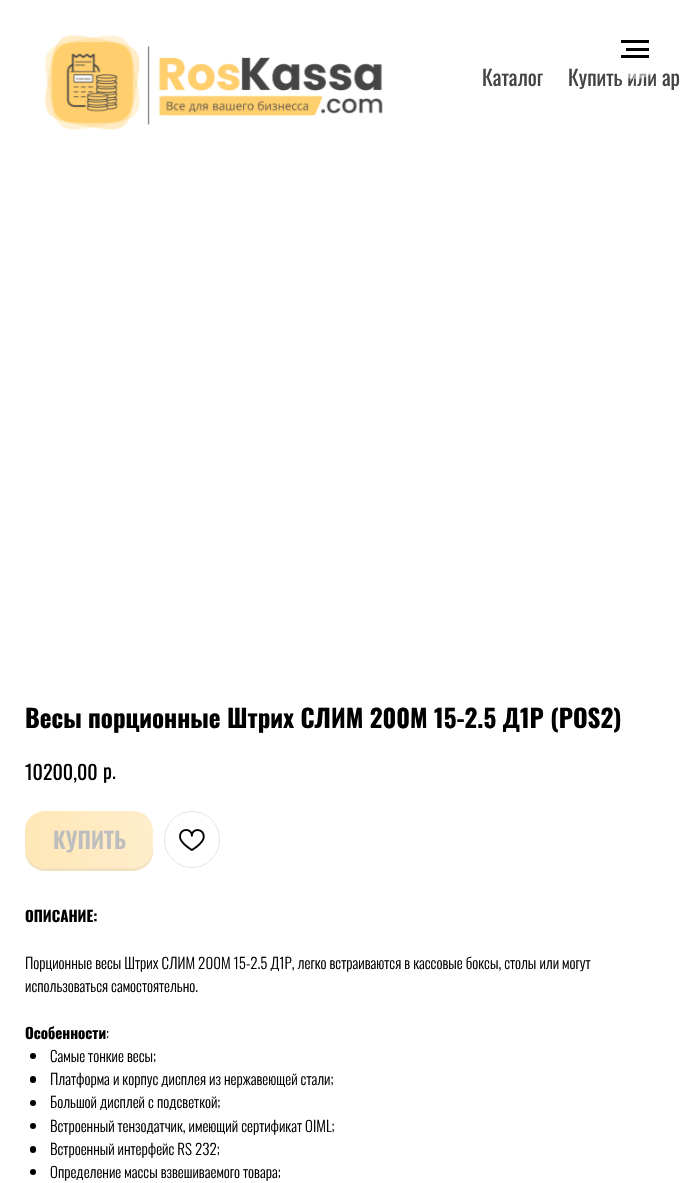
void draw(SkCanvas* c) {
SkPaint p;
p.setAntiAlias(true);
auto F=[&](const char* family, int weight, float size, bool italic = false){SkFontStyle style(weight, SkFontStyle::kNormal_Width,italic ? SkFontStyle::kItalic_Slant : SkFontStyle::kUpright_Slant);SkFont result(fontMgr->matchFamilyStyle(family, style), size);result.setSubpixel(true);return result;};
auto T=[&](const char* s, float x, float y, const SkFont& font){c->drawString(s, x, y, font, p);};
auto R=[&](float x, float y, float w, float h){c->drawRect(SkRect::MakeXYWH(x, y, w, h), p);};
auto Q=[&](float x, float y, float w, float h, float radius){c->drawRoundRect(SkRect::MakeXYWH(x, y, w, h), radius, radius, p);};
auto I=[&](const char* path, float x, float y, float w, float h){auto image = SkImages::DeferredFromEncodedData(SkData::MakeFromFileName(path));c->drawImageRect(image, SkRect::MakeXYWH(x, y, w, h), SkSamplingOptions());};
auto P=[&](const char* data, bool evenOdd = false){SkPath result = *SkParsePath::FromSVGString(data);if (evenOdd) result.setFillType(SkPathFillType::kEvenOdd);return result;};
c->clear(0xffffffff);
auto f1 = F("Oswald",400,21.25);
p.setColor(0xff454444);
T("Купить или ар",568,86,f1);
p.setColor(0x80ffffff);
c->drawCircle(635,49,30,p);
p.setColor(0xff000000);
R(621,40,28,3);
R(626,48,23,3);
R(621,55,28,3);
I("1.png",44,35,339,95);
p.setColor(0xff454444);
T("Каталог",482,86,f1);
auto f2 = F("Oswald",700,25);
p.setColor(0xff000000);
T("Весы порционные Штрих СЛИМ 200М 15-2.5 Д1Р (POS2)",25,728,f2);
auto f3 = F("Oswald",400,20);
T("10200,00",25,780,f3);
T("р.",103,779,f3);
p.setColor(0xfff2e1bf);
c->drawPath(P("M25 848v3c0 11 9 20 20 20h88c11 0 20-9 20-20v-16l-1-5c1 15 3 33-15 37l-19 1l-77-1c-9-2-16-10-16-19z"),p);
{
const SkColor colors[] = {0xffffe7b6,0xffffeecc};
const float stops[] = {0,1};
const SkPoint ends[] = {{23,844}, {154,835}};
p.setShader(SkGradientShader::MakeLinear(ends, colors, stops, 2, SkTileMode::kClamp));
p.setAlpha(255);
}
Q(25,811,128,57,20);
auto f4 = F("Oswald",600,22.5);
p.setShader(nullptr);
p.setColor(0xffbebebe);
T("КУПИТЬ",53,849,f4);
p.setStroke(true);
p.setStrokeWidth(1);
p.setColor(0xffe4e4e4);
c->drawRoundRect(SkRect::MakeXYWH(164.5,811.5,55,56),27.5,27.5,p);
I("2.png",179,829,26,22);
auto f5 = F("Oswald",700,15);
p.setStroke(false);
p.setColor(0xff000000);
T("ОПИСАНИЕ:",25,922,f5);
auto f6 = F("Oswald",300,15);
T("Порционные весы Штрих СЛИМ 200М 15-2.5 Д1Р, легко встраиваются в кассовые боксы, столы или могут",25,969,f6);
T("использоваться самостоятельно.",25,992,f6);
T("Особенности",25,1039,f5);
T(":",106,1039,f6);
c->drawCircle(33,1056,3,p);
T("Самые тонкие весы;",50,1062,f6);
Q(30,1076,6,7,3);
T("Платформа и корпус дисплея из нержавеющей стали;",50,1085,f6);
c->drawCircle(33,1103,3,p);
T("Большой дисплей с подсветкой;",50,1108,f6);
c->drawCircle(33,1126,3,p);
T("Встроенный тензодатчик, имеющий сертификат OIML;",50,1132,f6);
Q(30,1146,6,7,3);
T("Встроенный интерфейс RS 232;",50,1155,f6);
c->drawCircle(33,1172,3,p);
T("Определение массы взвешиваемого товара;",50,1178,f6);
}
